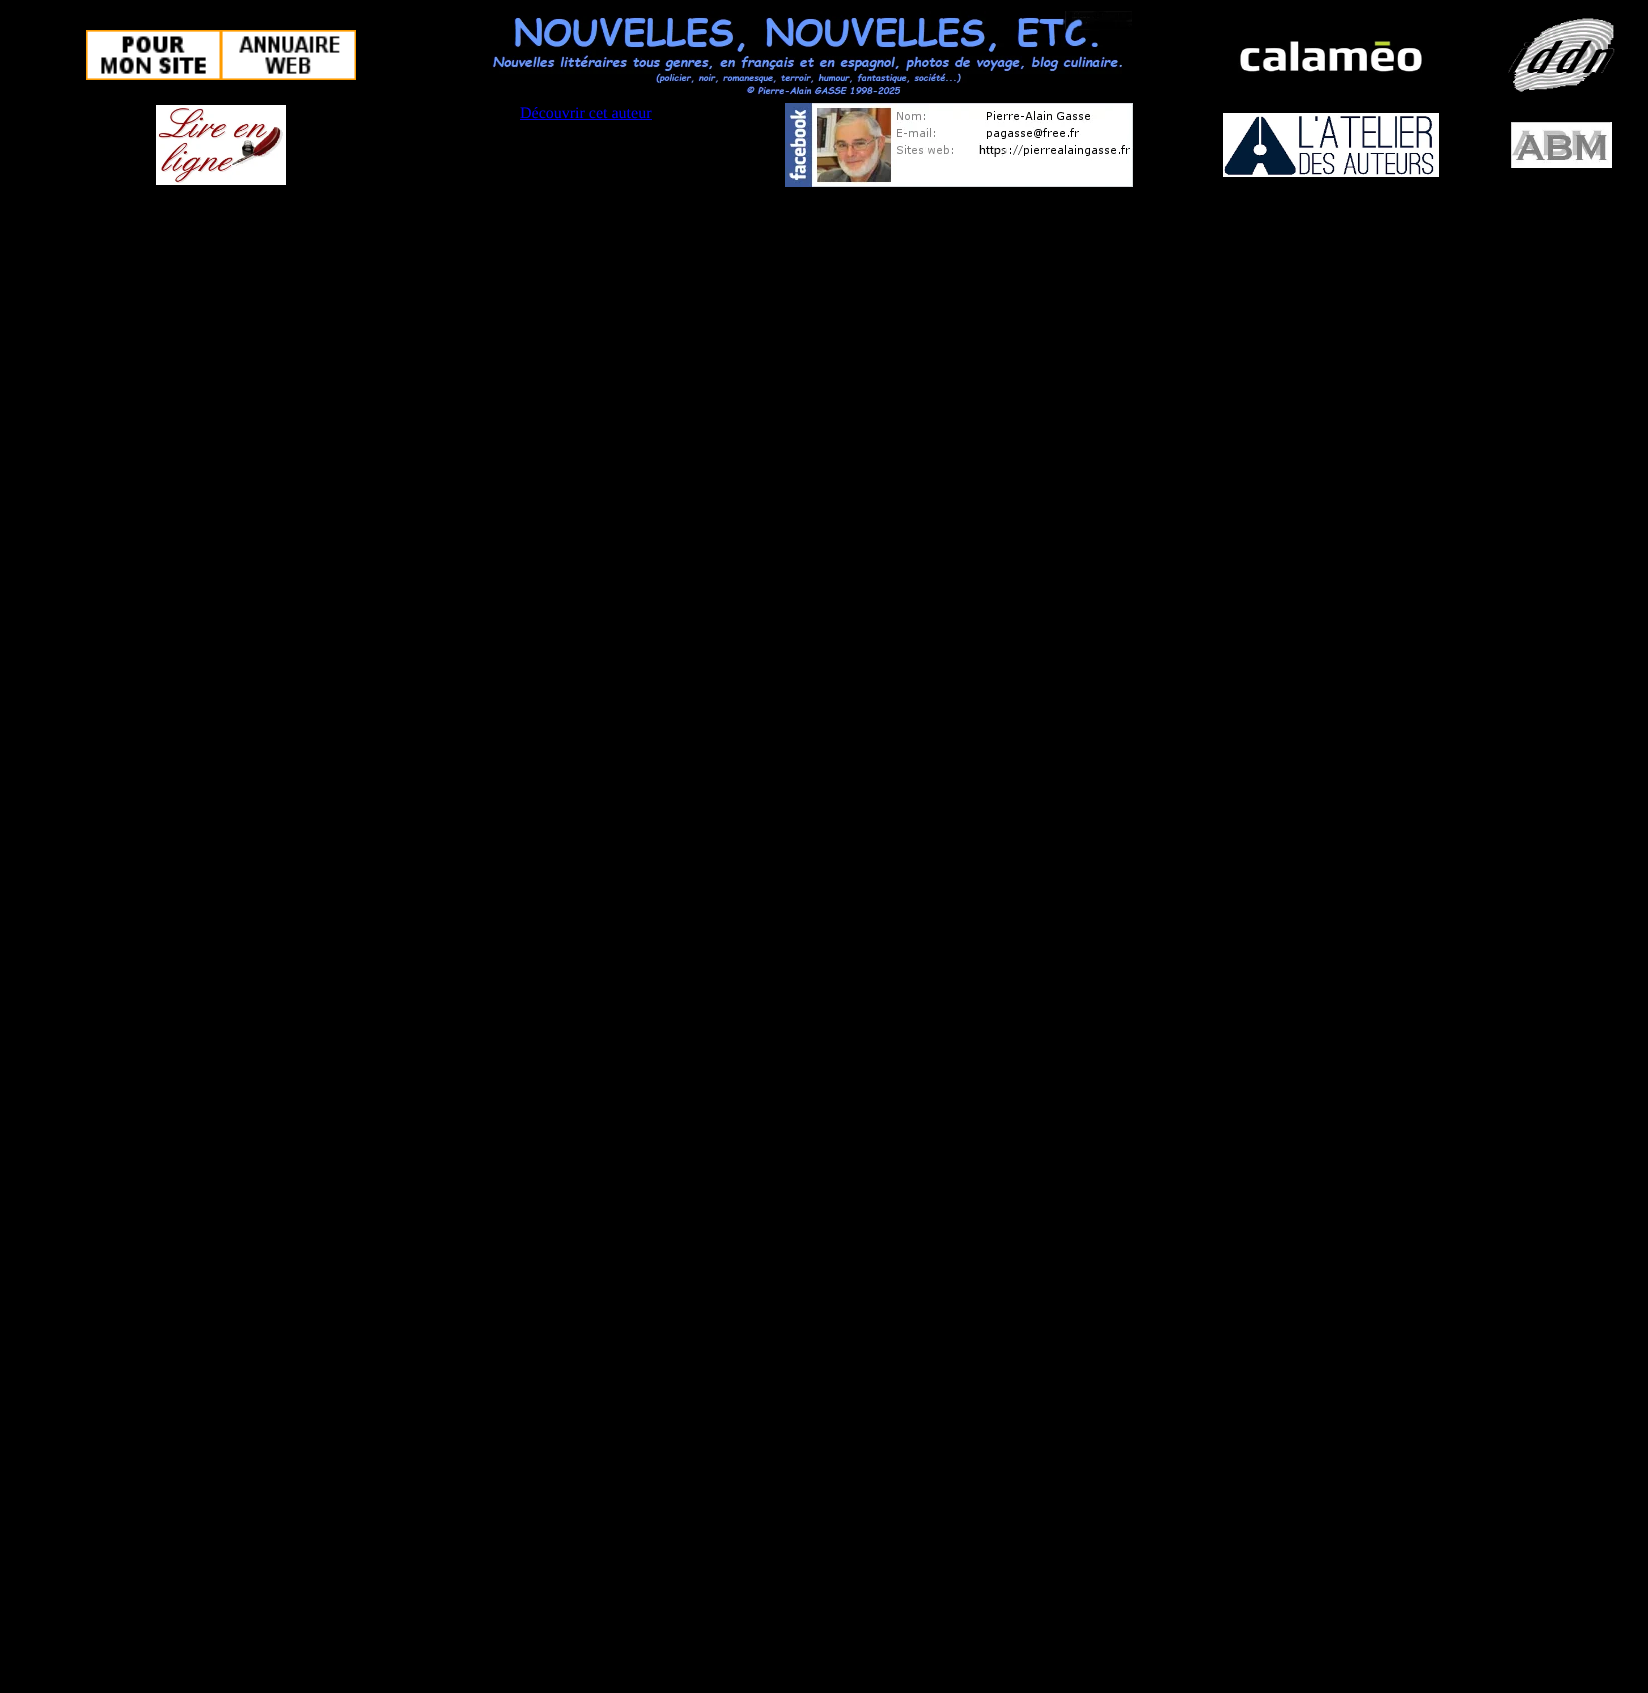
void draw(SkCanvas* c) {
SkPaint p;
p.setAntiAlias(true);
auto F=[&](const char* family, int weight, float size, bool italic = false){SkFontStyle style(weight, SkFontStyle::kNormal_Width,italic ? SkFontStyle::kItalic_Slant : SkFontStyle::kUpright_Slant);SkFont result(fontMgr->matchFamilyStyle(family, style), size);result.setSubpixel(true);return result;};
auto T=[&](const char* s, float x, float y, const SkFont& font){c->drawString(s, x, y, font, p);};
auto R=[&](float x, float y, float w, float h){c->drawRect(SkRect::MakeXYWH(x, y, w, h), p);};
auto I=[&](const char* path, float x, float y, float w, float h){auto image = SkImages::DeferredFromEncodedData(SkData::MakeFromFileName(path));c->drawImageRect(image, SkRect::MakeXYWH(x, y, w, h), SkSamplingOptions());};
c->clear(0xff000000);
I("1.png",86,30,135,50);
I("2.png",221,30,135,50);
I("3.png",492,11,640,86);
I("4.png",1238,40,184,33);
I("5.png",1508,18,107,74);
I("6.png",156,105,130,80);
auto f1 = F("Liberation Serif",400,16);
p.setColor(0xff0000ee);
T("Découvrir cet auteur",520,118,f1);
R(520,119,132,1);
I("7.png",785,103,348,84);
I("8.png",1223,113,216,64);
I("9.png",1511,122,101,46);
}
